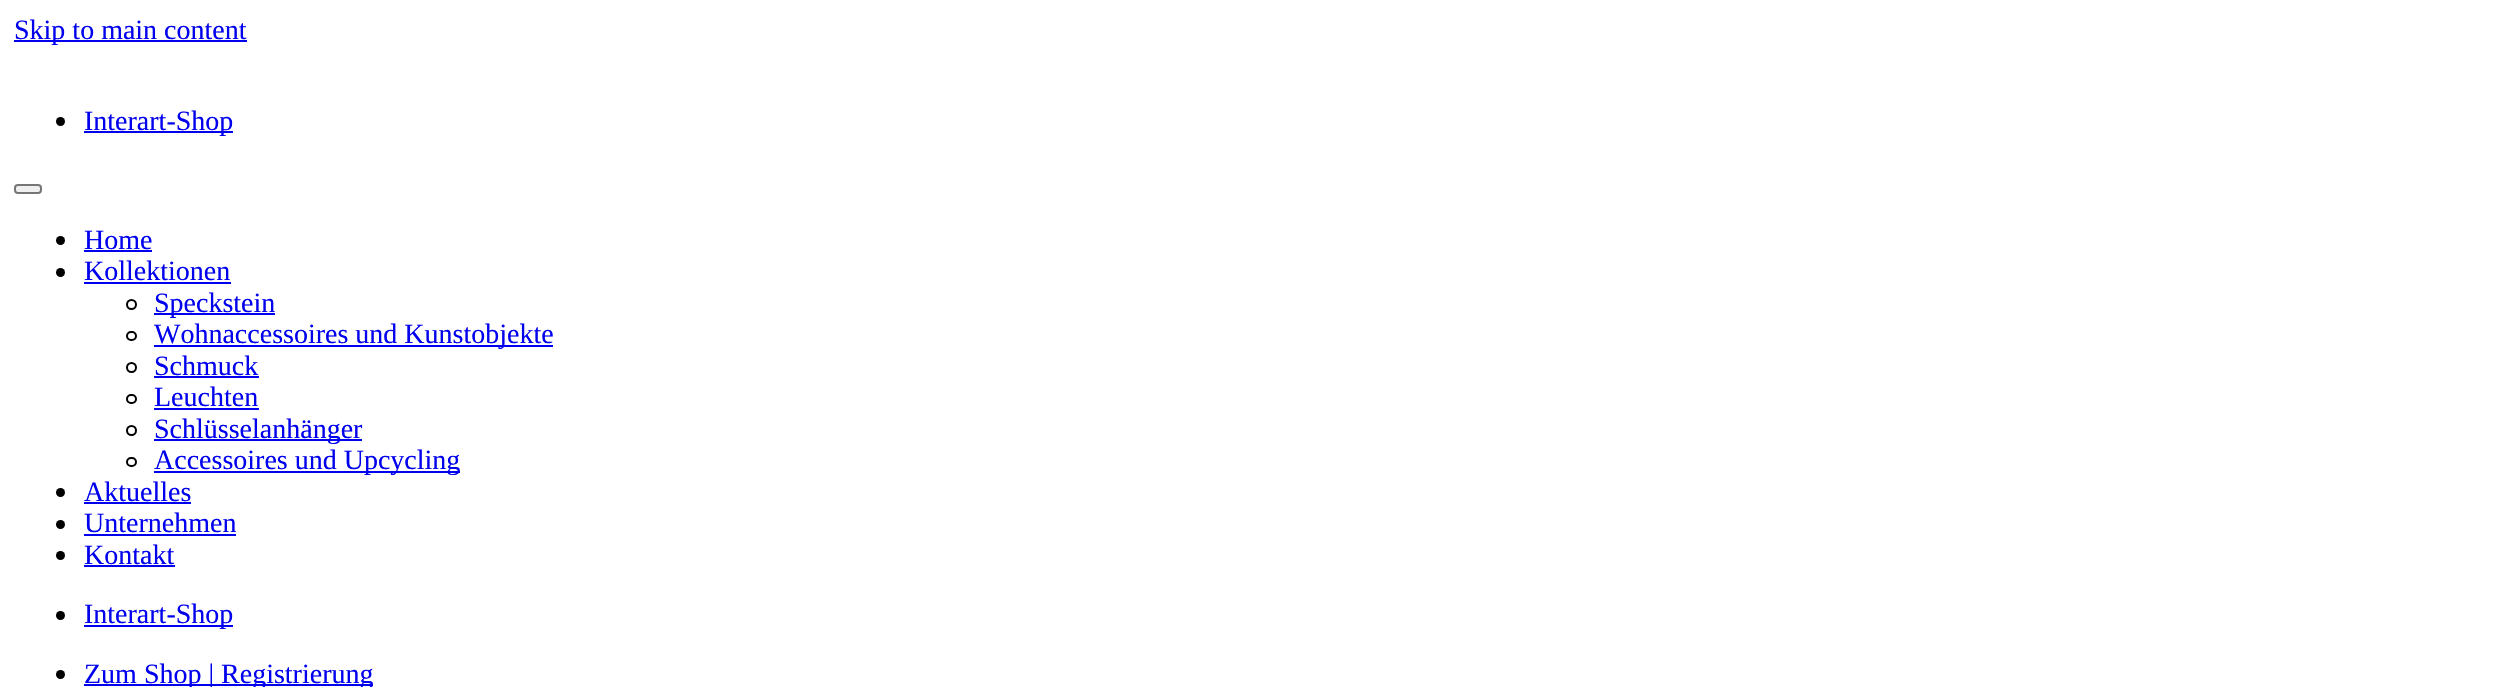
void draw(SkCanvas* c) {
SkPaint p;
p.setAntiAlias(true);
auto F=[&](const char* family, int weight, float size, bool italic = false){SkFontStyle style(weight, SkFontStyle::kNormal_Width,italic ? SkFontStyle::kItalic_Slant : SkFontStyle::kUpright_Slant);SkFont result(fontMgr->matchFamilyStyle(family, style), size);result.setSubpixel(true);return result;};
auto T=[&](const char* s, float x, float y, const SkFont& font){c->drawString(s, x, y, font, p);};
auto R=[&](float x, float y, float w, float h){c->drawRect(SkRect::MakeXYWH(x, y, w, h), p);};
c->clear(0xffffffff);
p.setColor(0xff0000ee);
R(14,40,233,2);
auto f1 = F("Liberation Serif",400,28);
T("Skip to main content",14,39,f1);
p.setColor(0xff000000);
c->drawCircle(60.5,121.5,4.5,p);
p.setColor(0xff0000ee);
R(84,131,149,2);
T("Interart-Shop",84,130,f1);
p.setColor(0xffefefef);
c->drawRoundRect(SkRect::MakeXYWH(15,185,26,8),3,3,p);
p.setStroke(true);
p.setStrokeWidth(2);
p.setColor(0xff767676);
c->drawRoundRect(SkRect::MakeXYWH(15,185,26,8),3,3,p);
p.setStroke(false);
p.setColor(0xff000000);
c->drawCircle(60.5,240.5,4.5,p);
p.setColor(0xff0000ee);
T("Home",84,249,f1);
R(84,250,68,2);
p.setColor(0xff000000);
c->drawCircle(60.5,272.5,4.5,p);
p.setColor(0xff0000ee);
T("Kollektionen",84,280,f1);
R(84,282,147,2);
p.setStroke(true);
p.setColor(0xff000000);
c->drawCircle(131.5,304.5,4.5,p);
p.setStroke(false);
p.setColor(0xff0000ee);
R(154,313,121,2);
T("Speckstein",154,312,f1);
p.setStroke(true);
p.setColor(0xff000000);
c->drawRoundRect(SkRect::MakeXYWH(127,332,9,8),4,4,p);
p.setStroke(false);
p.setColor(0xff0000ee);
R(154,345,399,2);
T("Wohnaccessoires und Kunstobjekte",154,343,f1);
p.setStroke(true);
p.setColor(0xff000000);
c->drawCircle(131.5,367.5,4.5,p);
p.setStroke(false);
p.setColor(0xff0000ee);
T("Schmuck",154,375,f1);
R(154,376,105,2);
p.setStroke(true);
p.setColor(0xff000000);
c->drawRoundRect(SkRect::MakeXYWH(127,395,9,8),4,4,p);
p.setStroke(false);
p.setColor(0xff0000ee);
T("Leuchten",154,406,f1);
R(154,408,105,2);
p.setStroke(true);
p.setColor(0xff000000);
c->drawCircle(131.5,430.5,4.5,p);
p.setStroke(false);
p.setColor(0xff0000ee);
R(154,439,208,2);
T("Schlüsselanhänger",154,438,f1);
p.setStroke(true);
p.setColor(0xff000000);
c->drawRoundRect(SkRect::MakeXYWH(127,458,9,8),4,4,p);
p.setStroke(false);
p.setColor(0xff0000ee);
R(154,471,306,2);
T("Accessoires und Upcycling",154,469,f1);
p.setColor(0xff000000);
c->drawCircle(60.5,492.5,4.5,p);
p.setColor(0xff0000ee);
T("Aktuelles",84,501,f1);
R(84,502,107,2);
p.setColor(0xff000000);
c->drawCircle(60.5,524.5,4.5,p);
p.setColor(0xff0000ee);
T("Unternehmen",84,532,f1);
R(84,534,152,2);
p.setColor(0xff000000);
c->drawCircle(60.5,555.5,4.5,p);
p.setColor(0xff0000ee);
T("Kontakt",84,564,f1);
R(84,565,91,2);
p.setColor(0xff000000);
c->drawCircle(60.5,615.5,4.5,p);
p.setColor(0xff0000ee);
R(84,625,149,2);
T("Interart-Shop",84,623,f1);
p.setColor(0xff000000);
c->drawCircle(60.5,674.5,4.5,p);
p.setColor(0xff0000ee);
R(84,684,289,2);
T("Zum Shop | Registrierung",84,683,f1);
}
